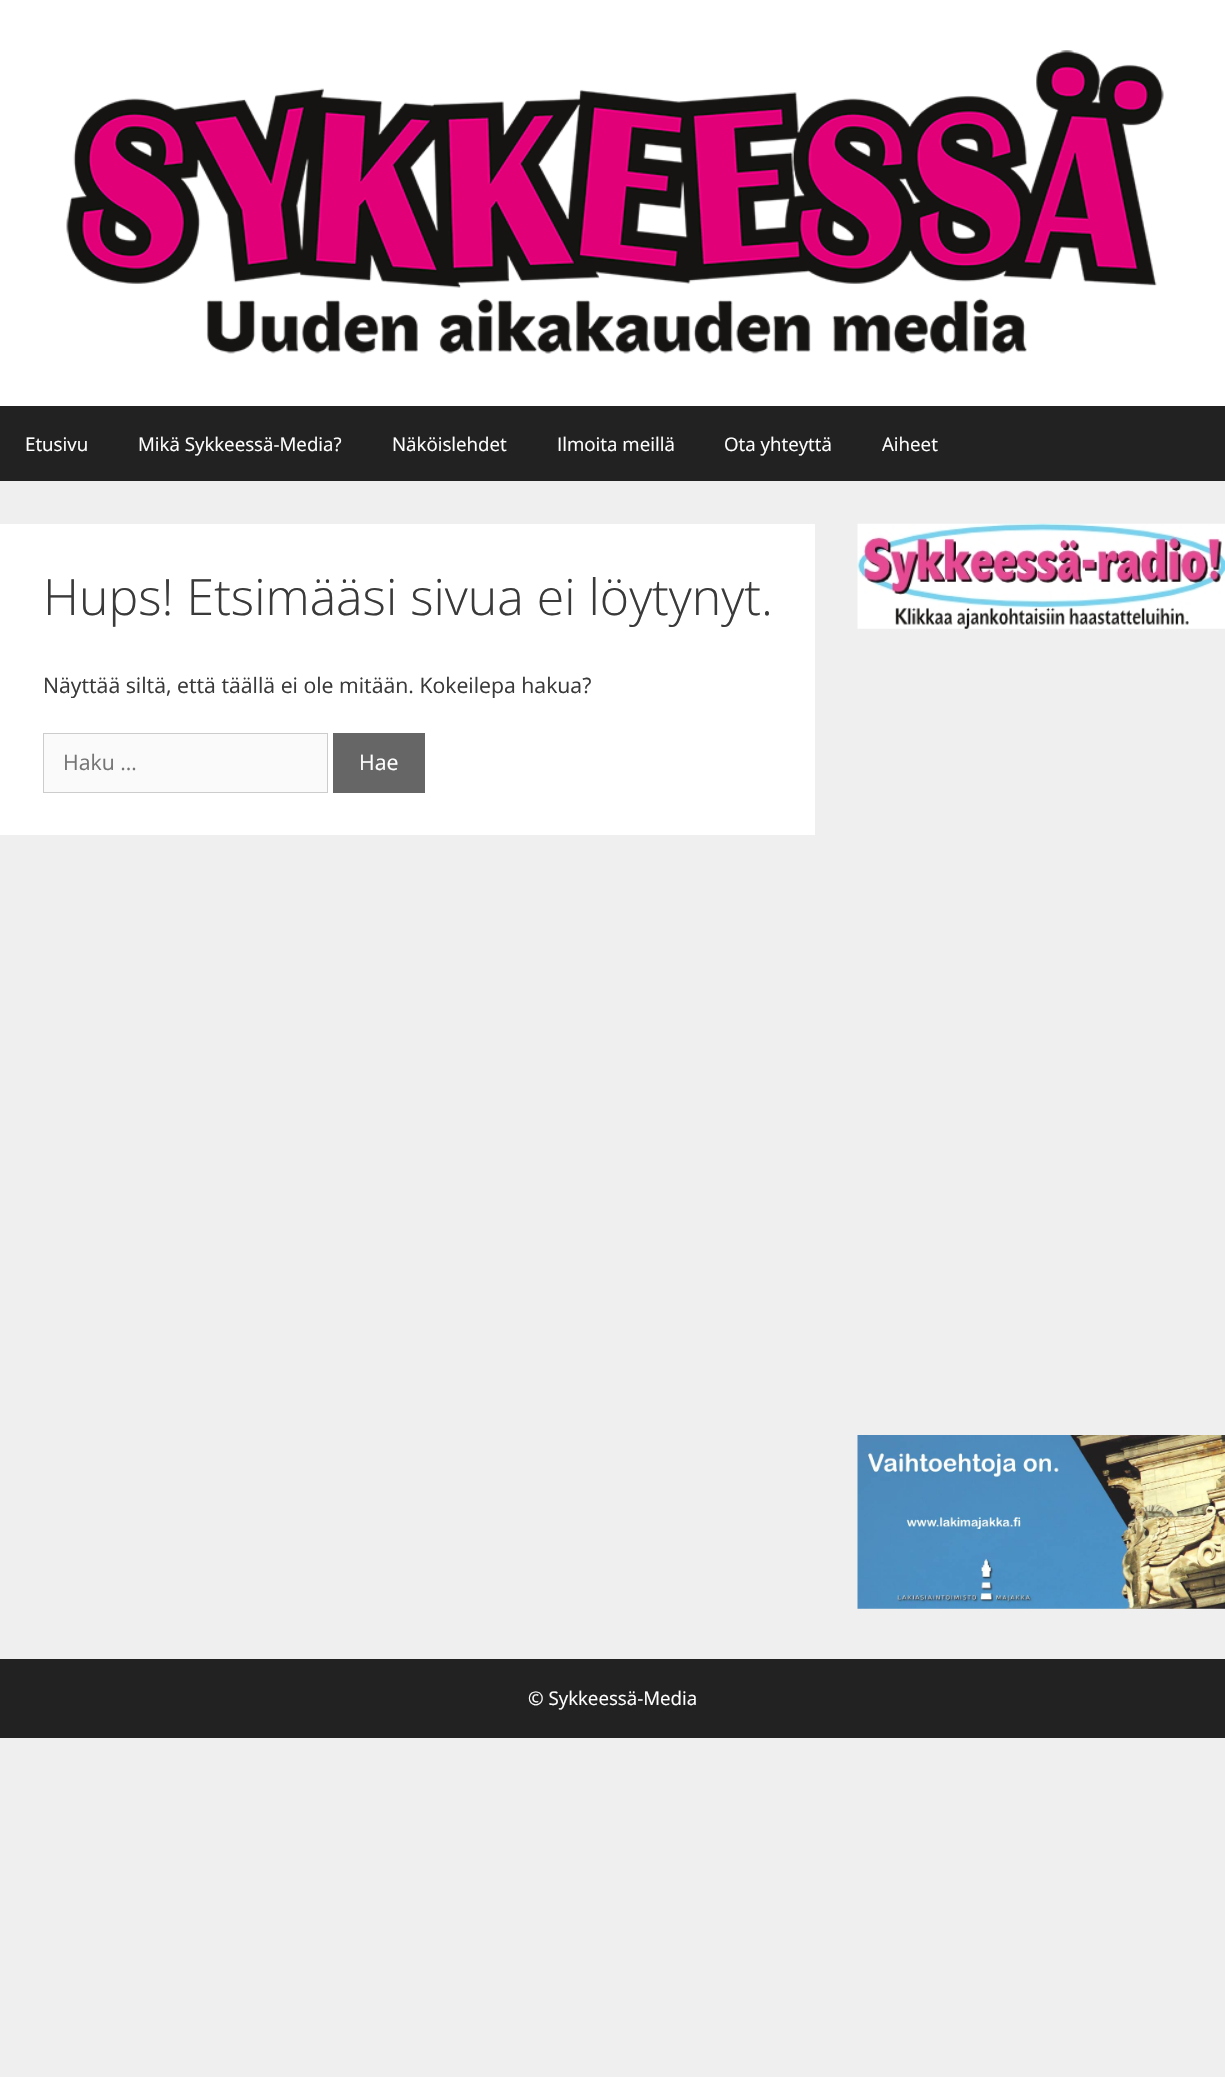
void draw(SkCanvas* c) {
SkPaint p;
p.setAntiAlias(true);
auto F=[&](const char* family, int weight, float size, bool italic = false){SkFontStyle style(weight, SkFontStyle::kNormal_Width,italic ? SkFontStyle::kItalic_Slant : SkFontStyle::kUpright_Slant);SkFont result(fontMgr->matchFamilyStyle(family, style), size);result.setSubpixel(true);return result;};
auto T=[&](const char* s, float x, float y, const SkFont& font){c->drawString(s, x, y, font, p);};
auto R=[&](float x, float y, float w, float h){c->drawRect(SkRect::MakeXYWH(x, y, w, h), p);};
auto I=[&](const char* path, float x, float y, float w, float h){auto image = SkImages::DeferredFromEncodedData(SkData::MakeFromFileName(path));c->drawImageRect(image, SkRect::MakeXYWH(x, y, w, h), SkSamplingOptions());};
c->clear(0xffefefef);
p.setColor(0xffffffff);
R(0,0,1225,406);
I("1.png",66,50,1098,304);
p.setColor(0xff222222);
R(0,406,1225,75);
auto f1 = F("Open Sans",400,18.75);
p.setColor(0xffffffff);
T("Etusivu",25,451,f1);
T("Mikä Sykkeessä-Media?",138,451,f1);
T("Näköislehdet",392,451,f1);
T("Ilmoita meillä",557,451,f1);
T("Ota yhteyttä",724,451,f1);
T("Aiheet",882,451,f1);
R(0,524,815,311);
auto f2 = F("Open Sans",300,50);
p.setColor(0xff3a3a3a);
T("Hups! Etsimääsi sivua ei löytynyt.",43,615,f2);
auto f3 = F("Open Sans",400,21.25);
T("Näyttää siltä, että täällä ei ole mitään. Kokeilepa hakua?",43,693,f3);
p.setColor(0xfffafafa);
c->drawRect(SkRect::MakeXYWH(43.5,733.5,284,59),p);
p.setStroke(true);
p.setStrokeWidth(1);
p.setColor(0xffcccccc);
c->drawRect(SkRect::MakeXYWH(43.5,733.5,284,59),p);
p.setStroke(false);
p.setColor(0xff757575);
T("Haku …",63,770,f3);
p.setColor(0xff666666);
R(333,733,92,60);
p.setColor(0xffffffff);
T("Hae",359,770,f3);
I("2.png",857,523,368,106);
I("3.png",857,1435,368,174);
p.setColor(0xff222222);
R(0,1659,1225,79);
p.setColor(0xffffffff);
T("© Sykkeessä-Media",528,1705,f1);
}
